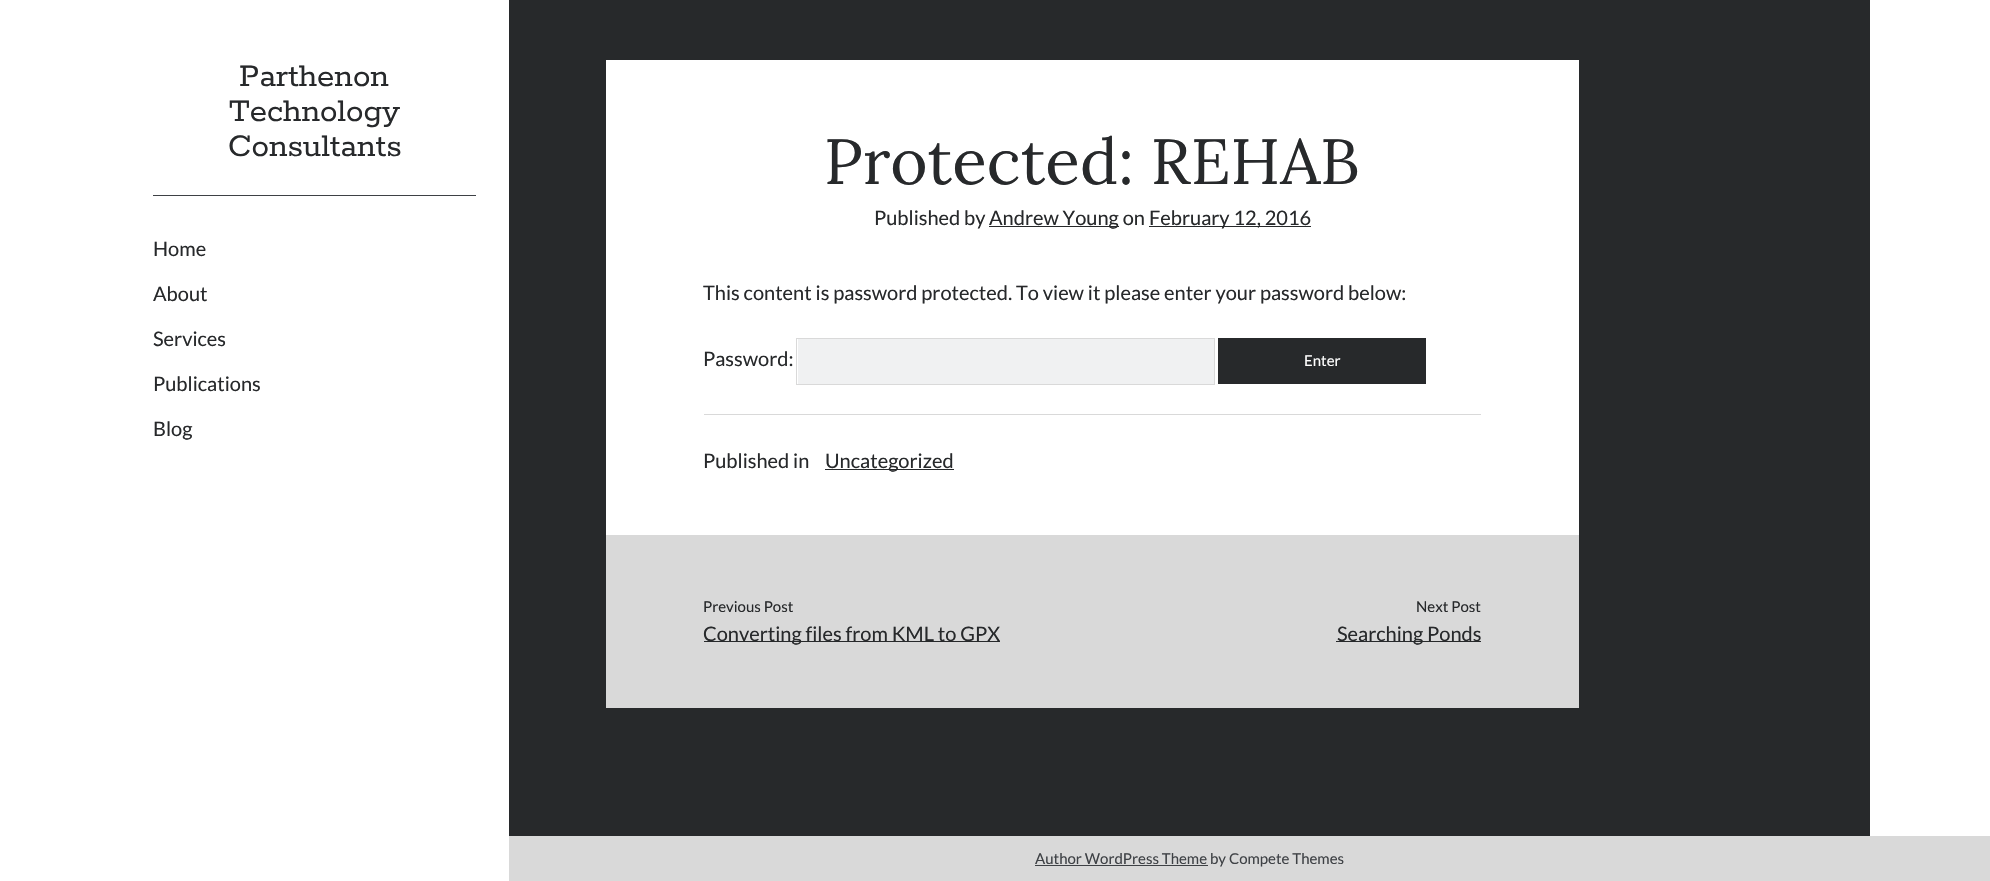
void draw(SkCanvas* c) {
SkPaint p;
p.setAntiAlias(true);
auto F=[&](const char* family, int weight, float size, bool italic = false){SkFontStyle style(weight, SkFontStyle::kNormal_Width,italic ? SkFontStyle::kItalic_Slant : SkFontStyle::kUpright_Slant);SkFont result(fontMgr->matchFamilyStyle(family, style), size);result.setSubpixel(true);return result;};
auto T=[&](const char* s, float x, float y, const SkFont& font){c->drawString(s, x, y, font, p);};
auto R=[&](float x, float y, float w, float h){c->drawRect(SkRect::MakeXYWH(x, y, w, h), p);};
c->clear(0xffffffff);
auto f1 = F("Rokkitt",400,35);
p.setColor(0xff27292b);
T("Parthenon",239,86,f1);
T("Technology",229,121,f1);
T("Consultants",228,156,f1);
p.setColor(0xff3e4145);
R(153,195,323,1);
auto f2 = F("Lato",400,20);
p.setColor(0xff27292b);
T("Home",153,256,f2);
T("About",153,301,f2);
T("Services",153,346,f2);
T("Publications",153,391,f2);
T("Blog",153,436,f2);
R(509,0,1361,836);
p.setColor(0xffffffff);
R(606,60,973,475);
auto f3 = F("Lora",400,63.75);
p.setColor(0xff27292b);
T("Protected: REHAB",824,184,f3);
T("Published by",874,225,f2);
R(989,226,130,1);
T("Andrew Young on",989,225,f2);
R(1149,226,162,1);
T("February 12, 2016",1149,225,f2);
p.setColor(0xffd9d9d9);
R(704,414,777,1);
p.setColor(0xff27292b);
T("This content is password protected. To view it please enter your password below:",703,300,f2);
T("Password:",703,366,f2);
p.setColor(0xfff0f1f2);
R(798,339,416,45);
p.setStroke(true);
p.setStrokeWidth(1);
p.setColor(0xffd9d9d9);
c->drawRect(SkRect::MakeXYWH(796.5,338.5,418,46),p);
p.setStroke(false);
p.setColor(0xff27292b);
R(1218,338,208,46);
auto f4 = F("Lato",400,15);
p.setColor(0xffffffff);
T("Enter",1304,366,f4);
p.setColor(0xff27292b);
T("Published in",703,468,f2);
R(825,469,129,1);
T("Uncategorized",825,468,f2);
p.setColor(0xffd9d9d9);
R(606,535,973,173);
p.setColor(0xff27292b);
T("Previous Post",703,612,f4);
R(704,641,296,1);
T("Converting files from KML to GPX",703,641,f2);
T("Next Post",1416,612,f4);
R(1336,641,145,1);
T("Searching Ponds",1337,641,f2);
p.setColor(0xffd9d9d9);
R(509,836,1481,45);
p.setColor(0xff3e4145);
R(1035,865,173,1);
T("Author WordPress Theme by Compete Themes",1035,864,f4);
}
